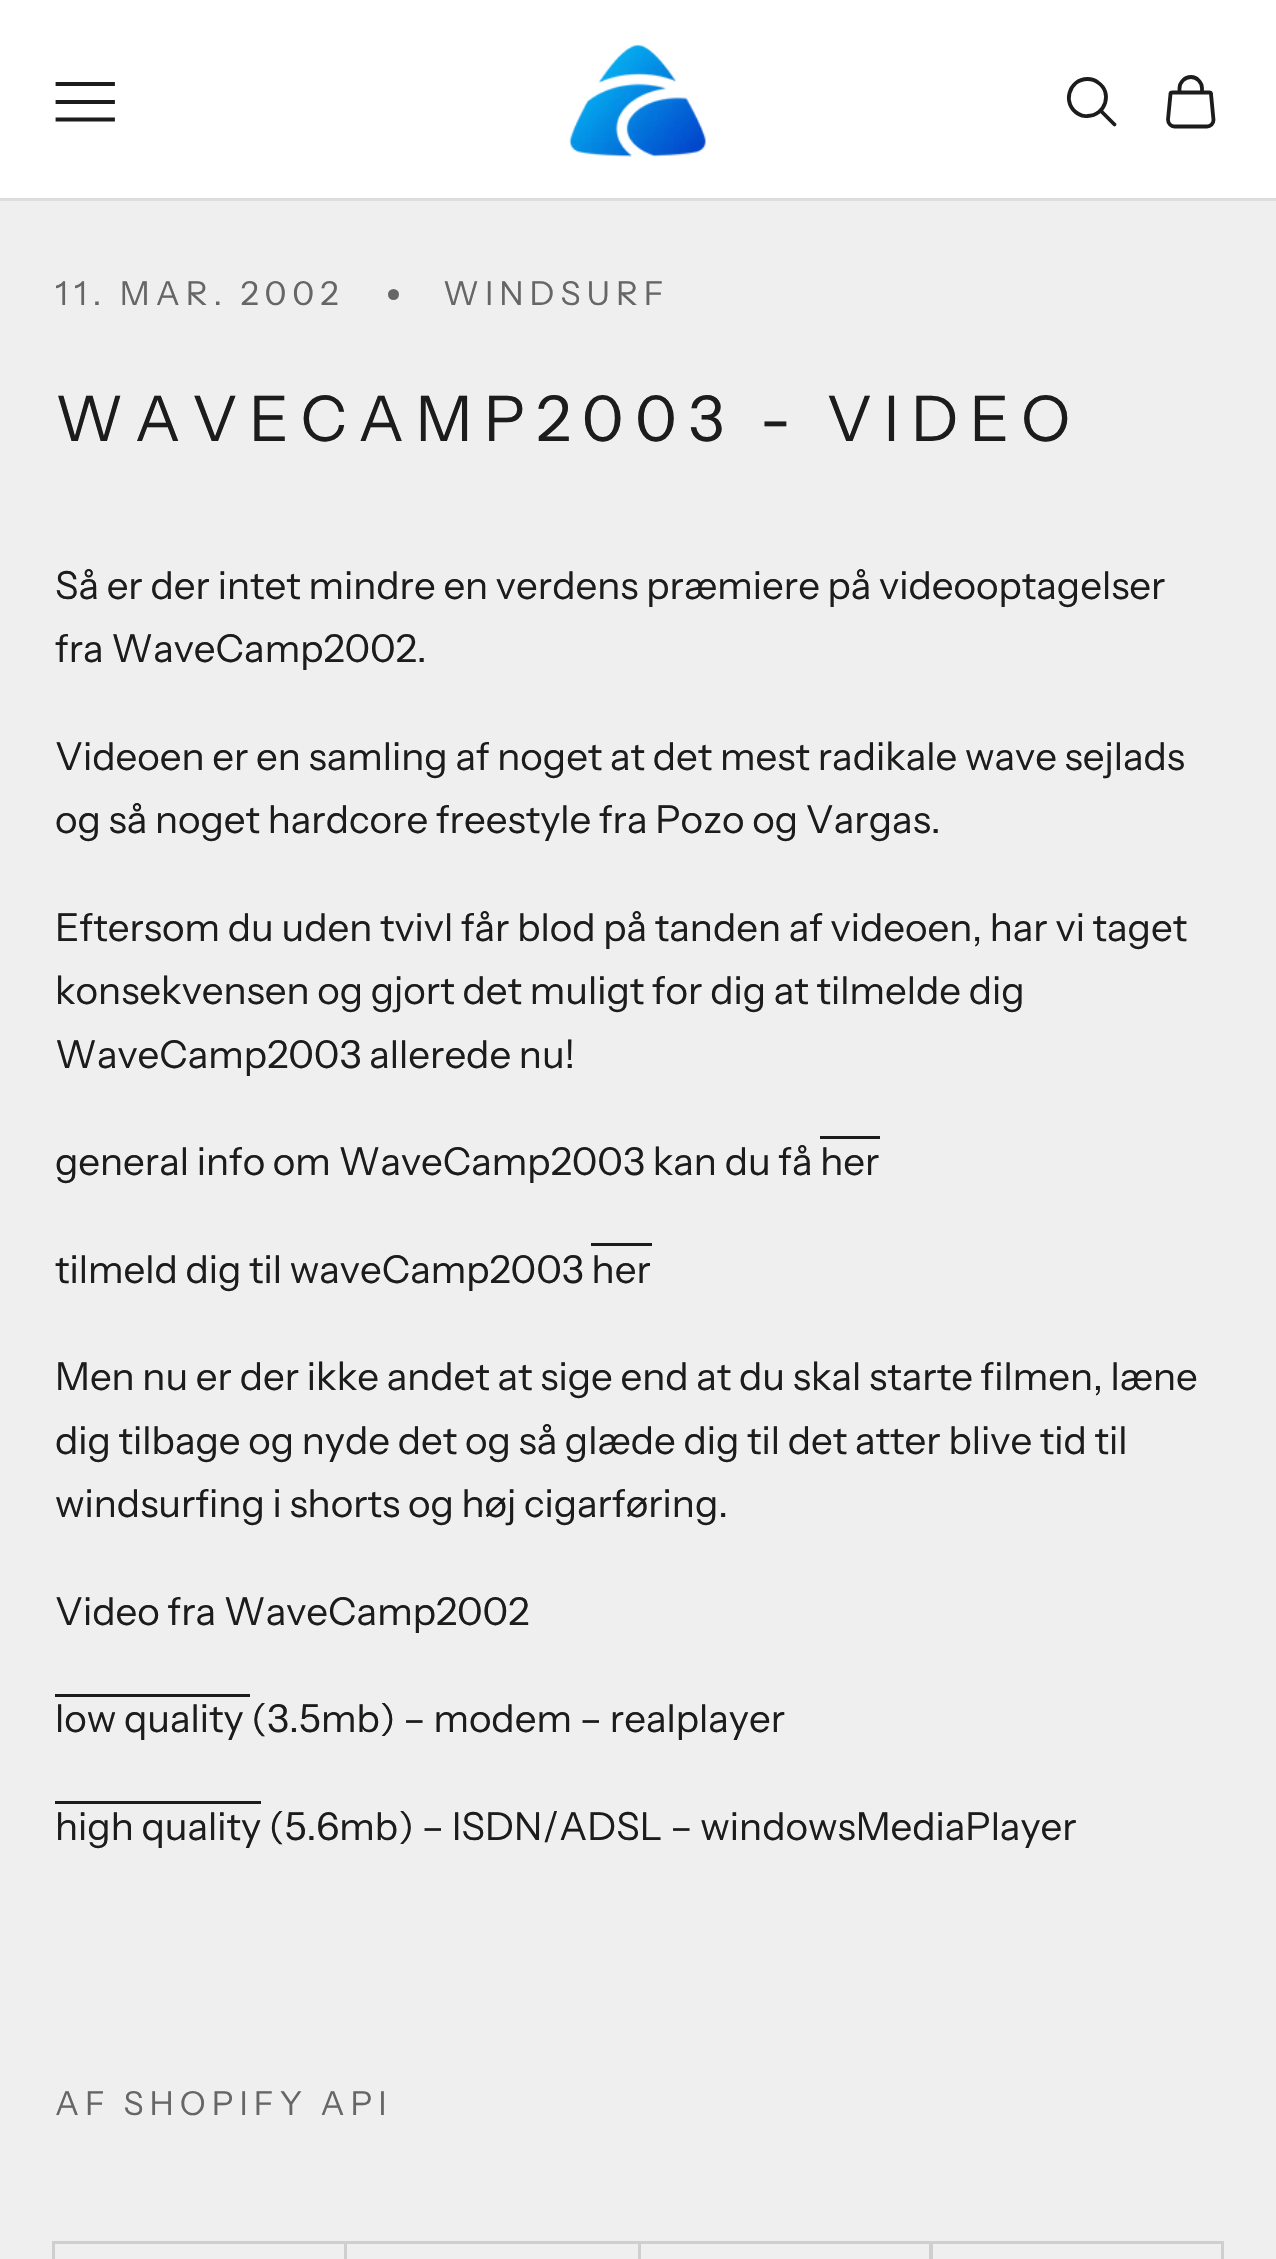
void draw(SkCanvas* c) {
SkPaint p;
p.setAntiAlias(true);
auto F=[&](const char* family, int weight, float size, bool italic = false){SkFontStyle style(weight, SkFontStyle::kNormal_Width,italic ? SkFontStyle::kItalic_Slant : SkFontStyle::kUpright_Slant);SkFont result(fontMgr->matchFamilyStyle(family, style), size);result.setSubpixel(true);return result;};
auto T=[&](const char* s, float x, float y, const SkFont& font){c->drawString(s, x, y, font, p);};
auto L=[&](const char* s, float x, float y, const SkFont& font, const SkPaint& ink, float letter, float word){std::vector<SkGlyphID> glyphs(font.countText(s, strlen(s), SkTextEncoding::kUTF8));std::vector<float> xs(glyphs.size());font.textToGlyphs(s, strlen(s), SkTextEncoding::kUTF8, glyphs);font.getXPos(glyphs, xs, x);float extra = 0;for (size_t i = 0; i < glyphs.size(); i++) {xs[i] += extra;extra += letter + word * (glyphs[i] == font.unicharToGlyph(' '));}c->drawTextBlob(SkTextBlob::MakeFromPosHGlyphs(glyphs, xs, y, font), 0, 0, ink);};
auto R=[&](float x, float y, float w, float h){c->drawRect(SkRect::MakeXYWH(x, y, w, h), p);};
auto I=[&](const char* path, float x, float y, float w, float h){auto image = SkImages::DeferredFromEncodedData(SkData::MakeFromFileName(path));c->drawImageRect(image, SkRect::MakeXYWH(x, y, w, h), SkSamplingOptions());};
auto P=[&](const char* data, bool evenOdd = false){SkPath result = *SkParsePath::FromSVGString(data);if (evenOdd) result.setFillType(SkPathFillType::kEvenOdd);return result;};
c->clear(0xffefefef);
p.setColor(0xffffffff);
R(0,0,1276,198);
p.setColor(0xffdddddd);
R(0,198,1276,3);
p.setStroke(true);
p.setStrokeWidth(3.8);
p.setStrokeCap(SkPaint::kSquare_Cap);
p.setColor(0xff1c1c1c);
c->drawPath(P("M57.5 119.5h55.5m-55.5-17.5h55.5m-55.5-18h55.5"),p);
I("1.png",569,44,137,113);
p.setStrokeCap(SkPaint::kButt_Cap);
c->drawPath(P("M1087.5 79c-19 0-26 25.5-9 35c2.5 1.5 6 2.5 9 2c18-.5 25.5-23.5 10.5-33.5c-3-2.5-6.5-3.5-10.5-3.5z"),p);
p.setStrokeCap(SkPaint::kRound_Cap);
c->drawPath(P("M1101.5 111.5l13 13"),p);
p.setStrokeJoin(SkPaint::kRound_Join);
c->drawPath(P("M1172.5 92.5c-1 0-2 .5-2 1.5l-2.5 25.5c0 4 3 7 6.5 7h32.5c3.5 0 6.5-3 6.5-6.5l-2.5-26c0-1-1-1.5-2-1.5zm7 0v-4c0-6 5-11.5 11.5-11.5c6 0 11 5.5 11 11.5v4"),p);
auto f1 = F("Instrument Sans",400,33);
p.setStroke(false);
p.setColor(0xff666666);
L("11. MAR. 2002",55,305,f1,p,6,0);
c->drawCircle(393.5,294.5,5.5,p);
L("WINDSURF",443,305,f1,p,6,0);
auto f2 = F("Instrument Sans",400,62.9);
p.setColor(0xff1c1c1c);
L("WAVECAMP2003 - VIDEO",55,441,f2,p,11.3,0);
auto f3 = F("Instrument Sans",400,38.5);
T("Så er der intet mindre en verdens præmiere på videooptagelser",55,599,f3);
T("fra WaveCamp2002.",55,662,f3);
T("Videoen er en samling af noget at det mest radikale wave sejlads",55,770,f3);
T("og så noget hardcore freestyle fra Pozo og Vargas.",55,833,f3);
T("Eftersom du uden tvivl får blod på tanden af videoen, har vi taget",55,941,f3);
T("konsekvensen og gjort det muligt for dig at tilmelde dig",55,1004,f3);
T("WaveCamp2003 allerede nu!",55,1068,f3);
R(820,1136,60,3);
T("general info om WaveCamp2003 kan du få her",55,1175,f3);
R(591,1243,61,3);
T("tilmeld dig til waveCamp2003 her",55,1283,f3);
T("Men nu er der ikke andet at sige end at du skal starte filmen, læne",55,1390,f3);
T("dig tilbage og nyde det og så glæde dig til det atter blive tid til",55,1454,f3);
T("windsurfing i shorts og høj cigarføring.",55,1517,f3);
T("Video fra WaveCamp2002",55,1625,f3);
T("low quality (3.5mb) – modem – realplayer",55,1732,f3);
R(55,1694,195,3);
T("high quality (5.6mb) – ISDN/ADSL – windowsMediaPlayer",55,1840,f3);
R(55,1801,206,3);
p.setColor(0xff666666);
L("AF SHOPIFY API",55,2115,f1,p,6,0);
p.setStroke(true);
p.setStrokeWidth(3);
p.setStrokeCap(SkPaint::kButt_Cap);
p.setStrokeJoin(SkPaint::kMiter_Join);
p.setColor(0xffcfcfcf);
c->drawRect(SkRect::MakeXYWH(53.5,2242.5,292,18),p);
c->drawRect(SkRect::MakeXYWH(345.5,2242.5,294,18),p);
c->drawRect(SkRect::MakeXYWH(639.5,2242.5,291,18),p);
c->drawRect(SkRect::MakeXYWH(931.5,2242.5,291,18),p);
}
